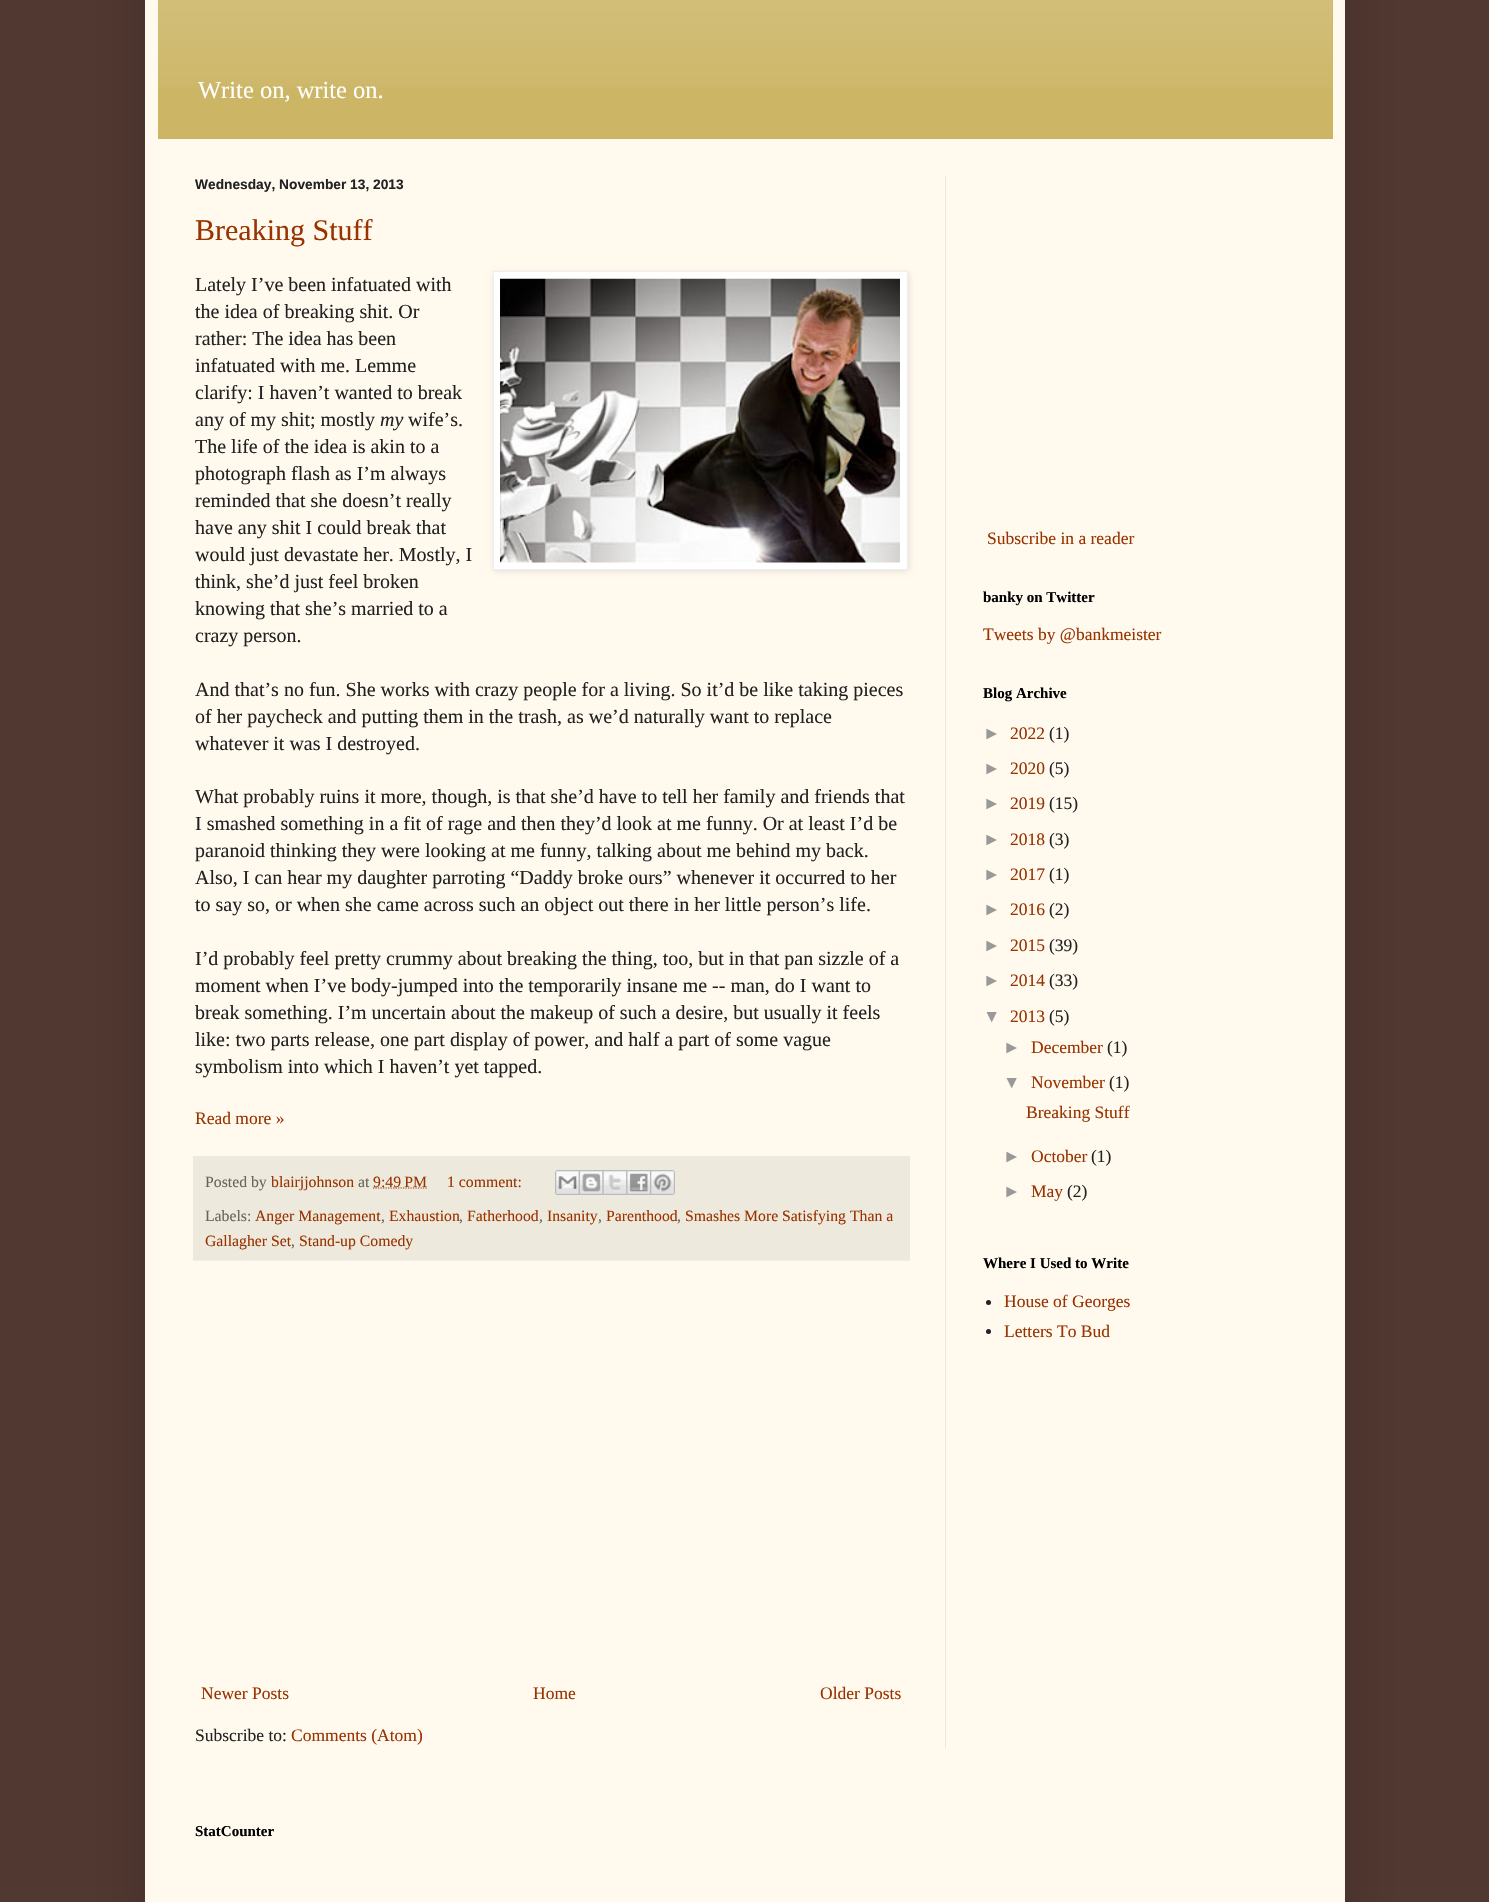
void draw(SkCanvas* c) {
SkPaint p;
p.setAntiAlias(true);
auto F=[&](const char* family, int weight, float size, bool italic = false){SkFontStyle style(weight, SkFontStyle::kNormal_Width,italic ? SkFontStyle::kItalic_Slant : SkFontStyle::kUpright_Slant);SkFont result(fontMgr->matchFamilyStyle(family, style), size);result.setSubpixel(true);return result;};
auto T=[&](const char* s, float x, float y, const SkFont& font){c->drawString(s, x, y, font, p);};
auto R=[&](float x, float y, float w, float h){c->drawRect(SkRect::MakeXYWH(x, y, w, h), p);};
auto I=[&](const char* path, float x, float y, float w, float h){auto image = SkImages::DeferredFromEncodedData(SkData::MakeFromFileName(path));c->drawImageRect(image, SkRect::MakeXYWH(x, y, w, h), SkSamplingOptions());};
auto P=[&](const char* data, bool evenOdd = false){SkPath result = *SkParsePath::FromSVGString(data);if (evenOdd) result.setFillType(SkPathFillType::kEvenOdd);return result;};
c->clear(0xff513831);
p.setColor(0x26000000);
p.setMaskFilter(SkMaskFilter::MakeBlur(kNormal_SkBlurStyle, 25));
c->drawRect(SkRect::MakeXYWH(145,-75,1200,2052),p);
p.setMaskFilter(nullptr);
p.setColor(0xfffff9ee);
R(145,0,1200,1902);
p.setColor(0xffccb666);
R(158,0,1175,139);
I("1.png",158,0,1175,88);
auto f1 = F("Liberation Serif",400,24.5);
p.setColor(0xffffffff);
T("Write on, write on.",198,98,f1);
p.setColor(0xffeee5dd);
R(945,176,1,1572);
auto f2 = F("Liberation Sans",700,13.75);
p.setColor(0xff222222);
T("Wednesday, November 13, 2013",195,189,f2);
auto f3 = F("Liberation Serif",400,30);
p.setColor(0xff993300);
T("Breaking Stuff",195,240,f3);
auto f4 = F("Liberation Serif",400,20);
p.setColor(0xff222222);
T("Lately I’ve been infatuated with",195,291,f4);
T("the idea of breaking shit. Or",195,318,f4);
T("rather: The idea has been",195,345,f4);
T("infatuated with me. Lemme",195,372,f4);
T("clarify: I haven’t wanted to break",195,399,f4);
T("any of my shit; mostly",195,426,f4);
auto f5 = F("Liberation Serif",400,20,true);
T("my",380,426,f5);
T("wife’s.",408,426,f4);
T("The life of the idea is akin to a",195,453,f4);
T("photograph flash as I’m always",195,480,f4);
T("reminded that she doesn’t really",195,507,f4);
T("have any shit I could break that",195,534,f4);
T("would just devastate her. Mostly, I",195,561,f4);
T("think, she’d just feel broken",195,588,f4);
T("knowing that she’s married to a",195,615,f4);
T("crazy person.",195,642,f4);
p.setColor(0x1a000000);
p.setMaskFilter(SkMaskFilter::MakeBlur(kNormal_SkBlurStyle, 3));
c->drawRect(SkRect::MakeXYWH(494,273,415,298),p);
p.setMaskFilter(nullptr);
p.setColor(0xffffffff);
c->drawRect(SkRect::MakeXYWH(493.5,271.5,414,298),p);
p.setStroke(true);
p.setStrokeWidth(1);
p.setColor(0xffeeeeee);
c->drawRect(SkRect::MakeXYWH(493.5,271.5,414,298),p);
I("2.png",500,278,400,285);
p.setStroke(false);
p.setColor(0xff222222);
T("And that’s no fun. She works with crazy people for a living. So it’d be like taking pieces",195,696,f4);
T("of her paycheck and putting them in the trash, as we’d naturally want to replace",195,723,f4);
T("whatever it was I destroyed.",195,750,f4);
T("What probably ruins it more, though, is that she’d have to tell her family and friends that",195,803,f4);
T("I smashed something in a fit of rage and then they’d look at me funny. Or at least I’d be",195,830,f4);
T("paranoid thinking they were looking at me funny, talking about me behind my back.",195,857,f4);
T("Also, I can hear my daughter parroting “Daddy broke ours” whenever it occurred to her",195,884,f4);
T("to say so, or when she came across such an object out there in her little person’s life.",195,911,f4);
T("I’d probably feel pretty crummy about breaking the thing, too, but in that pan sizzle of a",195,965,f4);
T("moment when I’ve body-jumped into the temporarily insane me -- man, do I want to",195,992,f4);
T("break something. I’m uncertain about the makeup of such a desire, but usually it feels",195,1019,f4);
T("like: two parts release, one part display of power, and half a part of some vague",195,1046,f4);
T("symbolism into which I haven’t yet tapped.",195,1073,f4);
auto f6 = F("Liberation Serif",400,17.5);
p.setColor(0xff993300);
T("Read more »",195,1124,f6);
p.setColor(0xffeee9dd);
R(193,1156,717,104);
p.setColor(0xffeeeeee);
R(193,1260,717,1);
auto f7 = F("Liberation Serif",400,15.75);
p.setColor(0xff666555);
T("Posted by",205,1187,f7);
p.setColor(0xff993300);
T("blairjjohnson",271,1187,f7);
p.setColor(0xff666555);
T("at",358,1187,f7);
p.setStroke(true);
p.setStrokeWidth(1.2);
p.setColor(0xff993300);
p.setPathEffect(SkDashPathEffect::Make({{1.25f,1.25f}}, 0));
c->drawPath(P("M373 1188h54"),p);
p.setPathEffect(nullptr);
p.setStroke(false);
T("9:49 PM",373,1187,f7);
T("1 comment:",447,1187,f7);
I("3.png",555,1170,24,25);
I("4.png",578,1170,25,25);
I("5.png",602,1170,25,25);
I("6.png",626,1170,24,25);
I("7.png",650,1170,25,25);
p.setColor(0xff666555);
T("Labels:",205,1221,f7);
p.setColor(0xff993300);
T("Anger Management",255,1221,f7);
p.setColor(0xff666555);
T(",",381,1221,f7);
p.setColor(0xff993300);
T("Exhaustion",389,1221,f7);
p.setColor(0xff666555);
T(",",459,1221,f7);
p.setColor(0xff993300);
T("Fatherhood",467,1221,f7);
p.setColor(0xff666555);
T(",",539,1221,f7);
p.setColor(0xff993300);
T("Insanity",547,1221,f7);
p.setColor(0xff666555);
T(",",598,1221,f7);
p.setColor(0xff993300);
T("Parenthood",606,1221,f7);
p.setColor(0xff666555);
T(",",677,1221,f7);
p.setColor(0xff993300);
T("Smashes More Satisfying Than a",685,1221,f7);
T("Gallagher Set",205,1246,f7);
p.setColor(0xff666555);
T(",",291,1246,f7);
p.setColor(0xff993300);
T("Stand-up Comedy",299,1246,f7);
T("Newer Posts",201,1699,f6);
T("Home",533,1699,f6);
T("Older Posts",820,1699,f6);
p.setColor(0xff222222);
T("Subscribe to:",195,1741,f6);
p.setColor(0xff993300);
T("Comments (Atom)",291,1741,f6);
T("Subscribe in a reader",987,544,f6);
auto f8 = F("Liberation Serif",700,15);
p.setColor(0xff000000);
T("banky on Twitter",983,602,f8);
p.setColor(0xff993300);
T("Tweets by @bankmeister",983,640,f6);
p.setColor(0xff000000);
T("Blog Archive",983,698,f8);
auto f9 = F("Liberation Sans",400,17.5);
p.setColor(0xff999999);
T("►",983,739,f9);
p.setColor(0xff993300);
T("2022",1010,739,f6);
p.setColor(0xff222222);
T("(1)",1049,739,f6);
p.setColor(0xff999999);
T("►",983,774,f9);
p.setColor(0xff993300);
T("2020",1010,774,f6);
p.setColor(0xff222222);
T("(5)",1049,774,f6);
p.setColor(0xff999999);
T("►",983,809,f9);
p.setColor(0xff993300);
T("2019",1010,809,f6);
p.setColor(0xff222222);
T("(15)",1049,809,f6);
p.setColor(0xff999999);
T("►",983,845,f9);
p.setColor(0xff993300);
T("2018",1010,845,f6);
p.setColor(0xff222222);
T("(3)",1049,845,f6);
p.setColor(0xff999999);
T("►",983,880,f9);
p.setColor(0xff993300);
T("2017",1010,880,f6);
p.setColor(0xff222222);
T("(1)",1049,880,f6);
p.setColor(0xff999999);
T("►",983,915,f9);
p.setColor(0xff993300);
T("2016",1010,915,f6);
p.setColor(0xff222222);
T("(2)",1049,915,f6);
p.setColor(0xff999999);
T("►",983,951,f9);
p.setColor(0xff993300);
T("2015",1010,951,f6);
p.setColor(0xff222222);
T("(39)",1049,951,f6);
p.setColor(0xff999999);
T("►",983,986,f9);
p.setColor(0xff993300);
T("2014",1010,986,f6);
p.setColor(0xff222222);
T("(33)",1049,986,f6);
p.setColor(0xff999999);
T("▼",983,1022,f9);
p.setColor(0xff993300);
T("2013",1010,1022,f6);
p.setColor(0xff222222);
T("(5)",1049,1022,f6);
p.setColor(0xff999999);
T("►",1003,1053,f9);
p.setColor(0xff993300);
T("December",1031,1053,f6);
p.setColor(0xff222222);
T("(1)",1107,1053,f6);
p.setColor(0xff999999);
T("▼",1003,1088,f9);
p.setColor(0xff993300);
T("November",1031,1088,f6);
p.setColor(0xff222222);
T("(1)",1109,1088,f6);
p.setColor(0xff993300);
T("Breaking Stuff",1026,1118,f6);
p.setColor(0xff999999);
T("►",1003,1162,f9);
p.setColor(0xff993300);
T("October",1031,1162,f6);
p.setColor(0xff222222);
T("(1)",1091,1162,f6);
p.setColor(0xff999999);
T("►",1003,1197,f9);
p.setColor(0xff993300);
T("May",1031,1197,f6);
p.setColor(0xff222222);
T("(2)",1067,1197,f6);
p.setColor(0xff000000);
T("Where I Used to Write",983,1268,f8);
p.setColor(0xff222222);
c->drawCircle(988.5,1302.5,2.5,p);
p.setColor(0xff993300);
T("House of Georges",1004,1307,f6);
p.setColor(0xff222222);
c->drawCircle(988.5,1331.5,2.5,p);
p.setColor(0xff993300);
T("Letters To Bud",1004,1337,f6);
p.setColor(0xff000000);
T("StatCounter",195,1836,f8);
}
